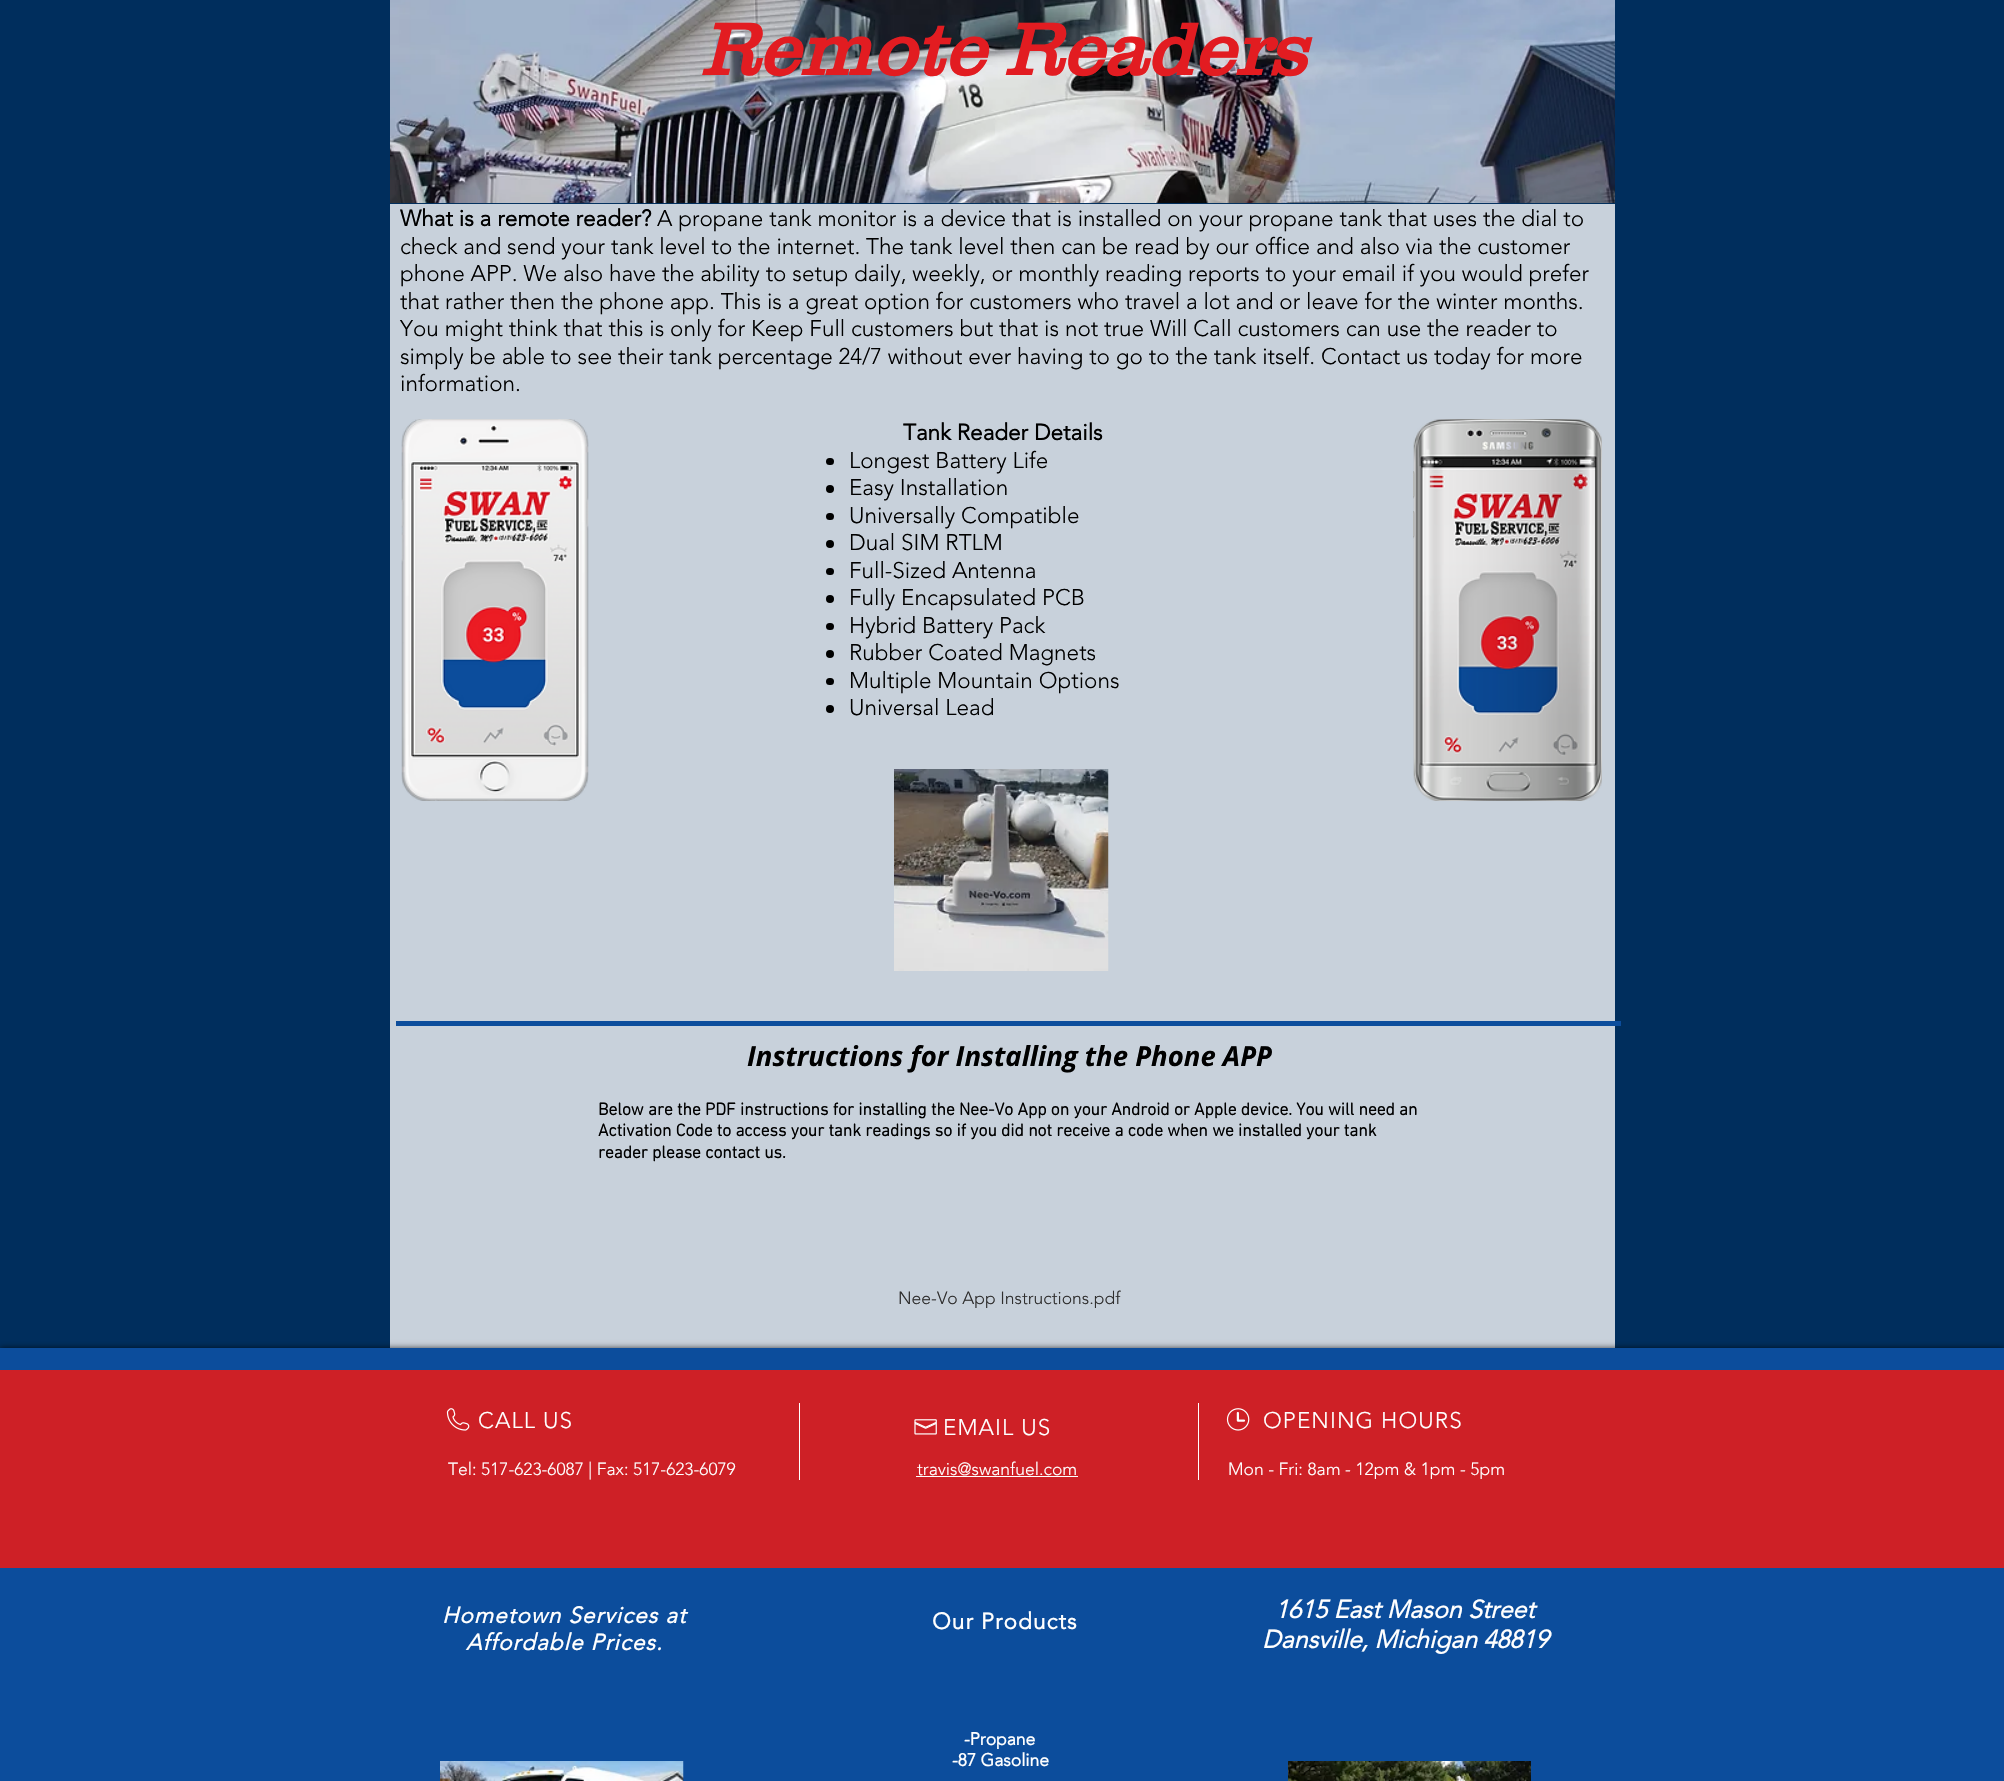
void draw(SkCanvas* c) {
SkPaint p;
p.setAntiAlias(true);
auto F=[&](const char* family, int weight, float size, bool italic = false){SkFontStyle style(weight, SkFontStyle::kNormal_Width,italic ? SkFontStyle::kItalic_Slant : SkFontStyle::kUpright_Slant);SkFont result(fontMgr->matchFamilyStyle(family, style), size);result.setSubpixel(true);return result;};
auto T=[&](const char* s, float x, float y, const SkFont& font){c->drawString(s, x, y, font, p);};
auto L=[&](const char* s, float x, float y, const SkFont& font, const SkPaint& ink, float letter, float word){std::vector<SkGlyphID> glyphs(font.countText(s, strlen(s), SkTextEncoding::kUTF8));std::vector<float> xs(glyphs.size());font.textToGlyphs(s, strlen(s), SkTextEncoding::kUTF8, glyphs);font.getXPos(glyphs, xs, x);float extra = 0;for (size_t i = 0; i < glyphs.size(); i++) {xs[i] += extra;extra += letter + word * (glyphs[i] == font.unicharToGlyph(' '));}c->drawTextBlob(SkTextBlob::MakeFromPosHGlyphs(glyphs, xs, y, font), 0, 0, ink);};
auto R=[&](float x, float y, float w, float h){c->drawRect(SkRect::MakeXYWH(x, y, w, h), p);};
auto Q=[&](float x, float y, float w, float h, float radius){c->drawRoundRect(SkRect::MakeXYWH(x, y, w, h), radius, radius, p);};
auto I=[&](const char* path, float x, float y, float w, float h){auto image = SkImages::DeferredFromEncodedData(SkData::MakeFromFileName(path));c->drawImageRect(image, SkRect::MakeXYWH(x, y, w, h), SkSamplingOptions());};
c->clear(0xff002e5d);
I("1.png",390,0,1225,204);
auto f1 = F("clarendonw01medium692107",700,75,true);
p.setColor(0xffe21c21);
T("Remote Readers",700,75,f1);
p.setColor(0xffc8d1db);
R(390,204,1225,1144);
auto f2 = F("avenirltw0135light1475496",700,22.5);
p.setColor(0xff000000);
T("What is a remote reader?",400,226,f2);
auto f3 = F("avenirltw0135light1475496",300,22.5);
T("A propane tank monitor is a device that is installed on your propane tank that uses the dial to",657,226,f3);
T("check and send your tank level to the internet. The tank level then can be read by our office and also via the customer",400,254,f3);
T("phone APP. We also have the ability to setup daily, weekly, or monthly reading reports to your email if you would prefer",400,281,f3);
T("that rather then the phone app. This is a great option for customers who travel a lot and or leave for the winter months.",400,309,f3);
T("You might think that this is only for Keep Full customers but that is not true Will Call customers can use the reader to",400,336,f3);
T("simply be able to see their tank percentage 24/7 without ever having to go to the tank itself. Contact us today for more",400,364,f3);
T("information.",400,391,f3);
I("2.png",401,419,188,382);
T("Tank Reader Details",903,440,f2);
Q(826,458,8,7,3.5);
T("Longest Battery Life",849,468,f3);
c->drawCircle(830,489,4,p);
T("Easy Installation",849,495,f3);
Q(826,513,8,7,3.5);
T("Universally Compatible",849,523,f3);
c->drawCircle(830,544,4,p);
T("Dual SIM RTLM",849,550,f3);
Q(826,568,8,7,3.5);
T("Full-Sized Antenna",849,578,f3);
c->drawCircle(830,599,4,p);
T("Fully Encapsulated PCB",849,605,f3);
Q(826,623,8,7,3.5);
T("Hybrid Battery Pack",849,633,f3);
c->drawCircle(830,654,4,p);
T("Rubber Coated Magnets",849,660,f3);
Q(826,678,8,7,3.5);
T("Multiple Mountain Options",849,688,f3);
c->drawCircle(830,709,4,p);
T("Universal Lead",849,715,f3);
I("3.png",1413,419,189,382);
I("4.png",894,769,215,202);
p.setColor(0xff0c4d9c);
R(396,1021,1225,5);
auto f4 = F("Open Sans",700,27.5,true);
p.setColor(0xff000000);
T("Instructions for Installing the Phone APP",747,1066,f4);
auto f5 = F("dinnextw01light",700,17.5);
T("Below are the PDF instructions for installing the Nee-Vo App on your Android or Apple device. You will need an",598,1115,f5);
T("Activation Code to access your tank readings so if you did not receive a code when we installed your tank",598,1136,f5);
T("reader please contact us.",598,1158,f5);
auto f6 = F("avenirltw0135light1475496",300,17.5);
p.setColor(0xff2f2e2e);
T("Nee-Vo App Instructions.pdf",898,1304,f6);
p.setColor(0xb3000000);
p.setMaskFilter(SkMaskFilter::MakeBlur(kNormal_SkBlurStyle, 3));
c->drawRect(SkRect::MakeXYWH(0,1348,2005,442),p);
p.setMaskFilter(nullptr);
p.setColor(0xff0c4d9c);
R(0,1348,2004,433);
p.setColor(0xffce2026);
R(0,1370,2004,198);
I("5.png",446,1408,24,23);
p.setColor(0xffffffff);
L("CALL US",478,1428,f3,p,1.1,0);
R(799,1403,1,77);
I("6.png",914,1419,23,16);
L("EMAIL US",943,1435,f3,p,1.1,0);
R(1198,1403,1,77);
I("7.png",1226,1408,24,23);
L("OPENING HOURS",1263,1428,f3,p,1.1,0);
T("Tel: 517-623-6087 | Fax: 517-623-6079",448,1475,f6);
T("travis@swanfuel.com",917,1475,f6);
R(916,1476,162,1);
T("Mon - Fri: 8am - 12pm & 1pm - 5pm",1228,1475,f6);
auto f7 = F("avenirltw0135light1475496",700,22.5,true);
L("Hometown Services at",442,1623,f7,p,1.1,0);
L("Affordable Prices.",466,1650,f7,p,1.1,0);
L("Our Products",932,1629,f2,p,1.1,0);
auto f8 = F("avenirltw0135light1475496",700,25,true);
T("1615 East Mason Street",1275,1618,f8);
T("Dansville, Michigan 48819",1262,1648,f8);
auto f9 = F("avenirltw0135light1475496",700,17.5);
T("-Propane",964,1745,f9);
T("-87 Gasoline",952,1766,f9);
I("8.png",440,1761,244,20);
I("9.png",1288,1761,243,20);
}
